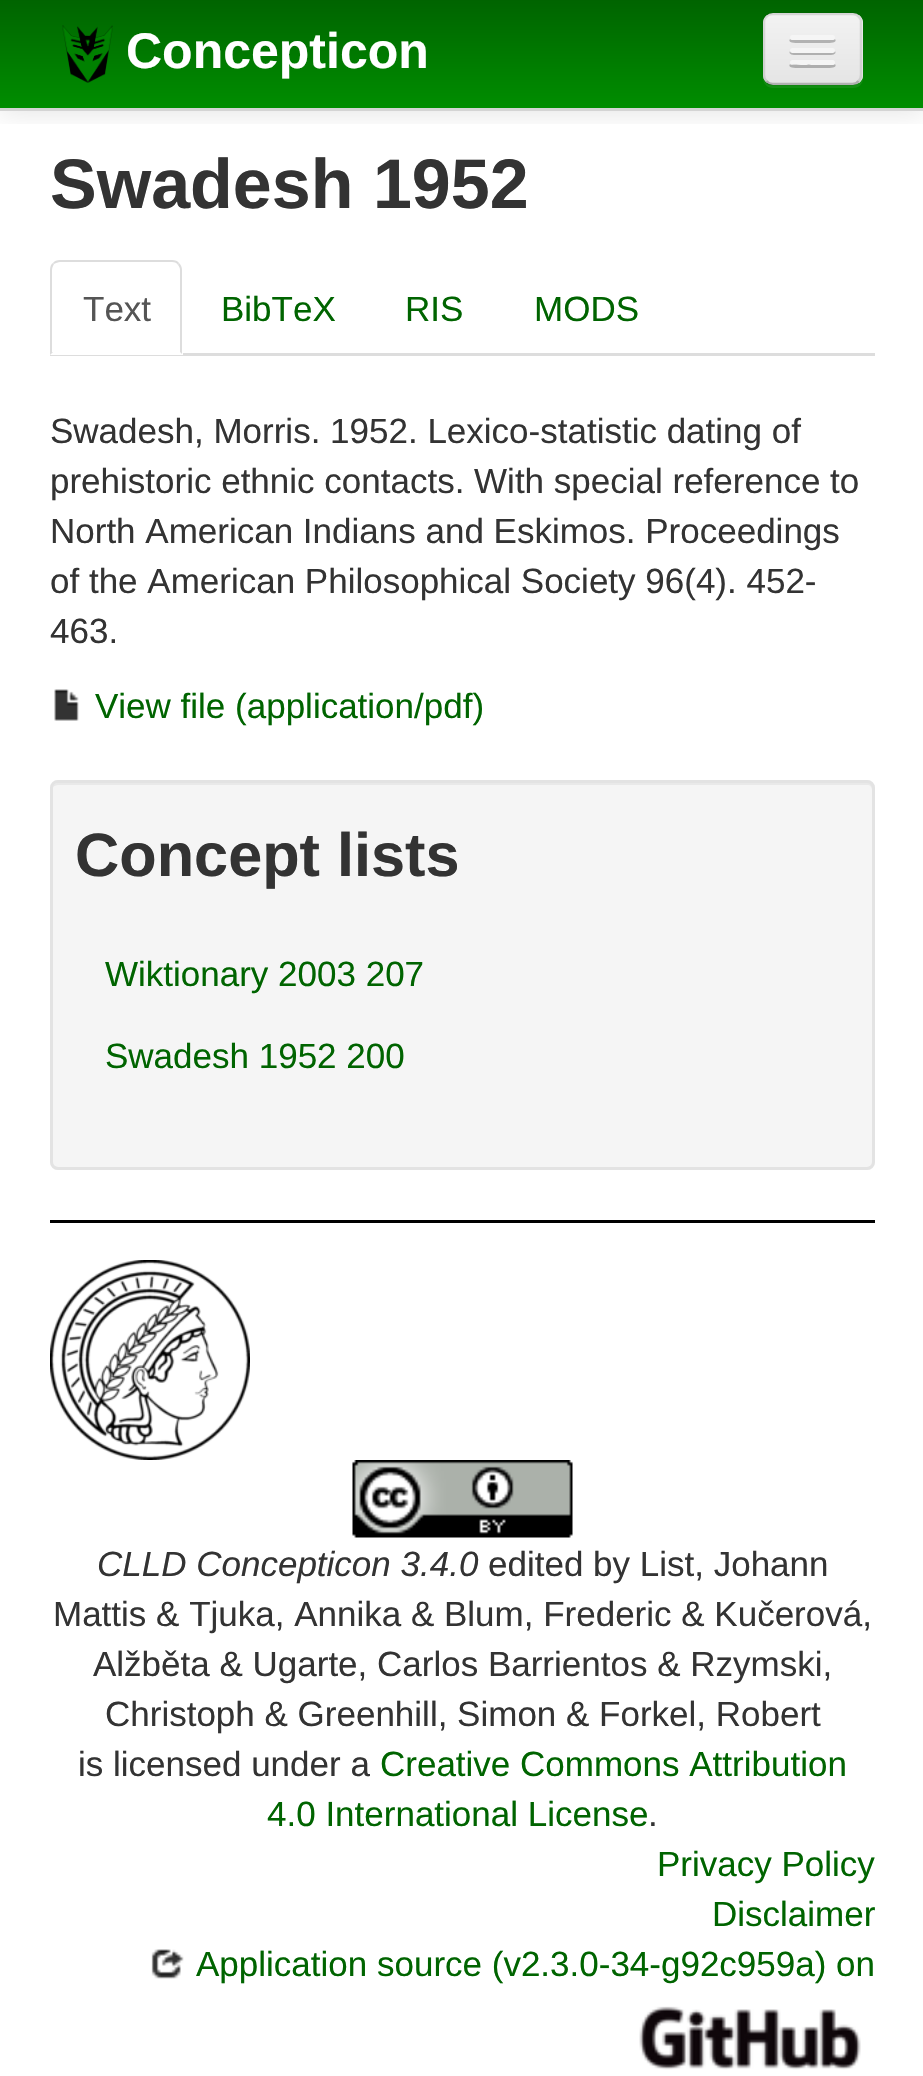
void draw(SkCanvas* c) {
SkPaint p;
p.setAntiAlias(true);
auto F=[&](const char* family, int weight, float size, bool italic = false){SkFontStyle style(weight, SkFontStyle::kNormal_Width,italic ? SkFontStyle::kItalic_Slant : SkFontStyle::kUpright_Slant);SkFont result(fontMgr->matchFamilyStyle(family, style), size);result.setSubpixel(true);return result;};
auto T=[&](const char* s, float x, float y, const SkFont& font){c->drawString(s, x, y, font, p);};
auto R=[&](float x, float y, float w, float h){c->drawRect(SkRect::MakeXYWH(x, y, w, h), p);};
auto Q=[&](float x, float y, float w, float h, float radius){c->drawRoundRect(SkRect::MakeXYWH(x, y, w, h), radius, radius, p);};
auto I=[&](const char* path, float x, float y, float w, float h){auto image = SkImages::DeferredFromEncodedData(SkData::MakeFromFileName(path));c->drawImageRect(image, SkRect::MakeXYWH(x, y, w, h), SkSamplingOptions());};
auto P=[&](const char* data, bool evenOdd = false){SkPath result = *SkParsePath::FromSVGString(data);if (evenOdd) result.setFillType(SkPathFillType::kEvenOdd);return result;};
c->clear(0xffffffff);
{
const SkColor colors[] = {0xff006400,0xff008e00};
const float stops[] = {0,1};
const SkPoint ends[] = {{463,0}, {463,110}};
p.setShader(SkGradientShader::MakeLinear(ends, colors, stops, 2, SkTileMode::kClamp));
p.setAlpha(255);
}
R(0,0,923,108);
c->save();
c->clipRect(SkRect::MakeXYWH(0,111,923,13));
p.setShader(nullptr);
p.setColor(0x1a000000);
p.setMaskFilter(SkMaskFilter::MakeBlur(kNormal_SkBlurStyle, 12.5));
c->drawRect(SkRect::MakeXYWH(0,3,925,110),p);
p.setMaskFilter(nullptr);
c->restore();
p.setColor(0xffd4d4d4);
R(0,108,923,3);
I("1.png",62,25,51,58);
auto f1 = F("Liberation Sans",700,50);
p.setColor(0xffffffff);
T("Concepticon",126,68,f1);
p.setColor(0x12ffffff);
c->drawPath(P("M763 78c0 6 5 10 10 10h80c6 0 10-4 10-10v-53l-1-3v53c0 6-4 10-10 10h-80c-4 0-8-3-9-7z"),p);
p.setColor(0xffededed);
Q(763,13,100,72,10);
c->save();
c->clipPath(P("M773 13h80c5.5 0 10 4.5 10 10v52c0 5.5-4.5 10-10 10h-80c-5.5 0-10-4.5-10-10v-52c0-5.5 4.5-10 10-10z"),true);
{
const SkColor colors[] = {0xfff2f2f2,0xffe5e5e5};
const float stops[] = {0,1};
const SkPoint ends[] = {{813,15}, {813,83}};
p.setShader(SkGradientShader::MakeLinear(ends, colors, stops, 2, SkTileMode::kClamp));
p.setAlpha(255);
}
R(763,15,100,68);
c->restore();
p.setStroke(true);
p.setStrokeWidth(2.5);
p.setShader(nullptr);
p.setColor(0x40000000);
c->drawPath(P("M858.5 81c-1.5 2-3.5 3-6 3h-80c-2.5 0-4.5-1-6-3"),p);
p.setColor(0x1a000000);
c->drawPath(P("M766.5 81c-2-1.5-2.5-3.5-2.5-6v-52.5c0-2.5 .5-4.5 2.5-6c1.5-2 3.5-2.5 6-2.5h80c2.5 0 4.5 .5 6 2.5c2 1.5 2.5 3.5 2.5 6v52.5c0 2.5-.5 4.5-2.5 6"),p);
p.setStroke(false);
p.setColor(0xffb2b2b2);
c->drawPath(P("M790 39c-3 4 5 4 9 4h27c4 0 12 0 9-4l-2 1h-41z"),p);
p.setColor(0xfff5f5f5);
Q(790,35,45,5,2.5);
p.setColor(0xffb0b0b0);
c->drawPath(P("M790 51c-3 5 9 4 9 4h27c0 0 12 1 9-4c-1 1-2 1-3 1h-40c0 0-1 0-2-1z"),p);
p.setColor(0xfff5f5f5);
Q(790,48,45,5,2.5);
p.setColor(0xffaeaeae);
c->drawPath(P("M790 64c-3 4 5 4 9 4h27c4 0 12 0 9-4l-2 1h-41z"),p);
p.setColor(0xfff5f5f5);
Q(790,60,45,5,2.5);
I("2.png",791,64,20,1);
auto f2 = F("Liberation Sans",700,70);
p.setColor(0xff333333);
T("Swadesh 1952",50,208,f2);
p.setColor(0xffdddddd);
R(50,353,825,3);
p.setColor(0xffffffff);
c->drawPath(P("M60 260h113c5.5 0 10 4.5 10 10v85h-133v-85c0-5.5 4.5-10 10-10z"),p);
p.setColor(0xffdddddd);
c->drawPath(P("M60 260c-3 0-6 1-7 3l1 1c2-1 4-2 6-2h112c3 0 5 1 6 3l1-2c-1-2-4-3-7-3z"),p);
c->drawPath(P("M179 263c2 2 3 4 3 7v84l-2-2v-82c0-2-1-4-2-5z"),p);
c->drawPath(P("M50 355l3-3h-1v-82c0-2 1-4 2-6l-1-1c-2 1-3 4-3 7z"),p);
auto f3 = F("Liberation Sans",400,35);
p.setColor(0xff555555);
T("Text",83,321,f3);
p.setColor(0xff006400);
T("BibTeX",221,321,f3);
T("RIS",405,321,f3);
T("MODS",534,321,f3);
p.setColor(0xff333333);
T("Swadesh, Morris. 1952. Lexico-statistic dating of",50,443,f3);
T("prehistoric ethnic contacts. With special reference to",50,493,f3);
T("North American Indians and Eskimos. Proceedings",50,543,f3);
T("of the American Philosophical Society 96(4). 452-",50,593,f3);
T("463.",50,643,f3);
I("3.png",54,689,25,32);
p.setColor(0xff006400);
T("View file (application/pdf)",95,718,f3);
p.setColor(0xfff5f5f5);
Q(50,780,825,390,8);
p.setColor(0xffe9e9e9);
c->drawPath(P("M58 785h810c2 0 4 2 4 5v376c1-1 1-2 1-3v-375c0-3-2-5-5-5h-810c-2 0-5 2-5 4c1-1 3-2 5-2z"),p);
p.setStroke(true);
p.setStrokeWidth(3);
p.setColor(0xffe3e3e3);
c->drawRoundRect(SkRect::MakeXYWH(51.5,781.5,822,387),6.5,6.5,p);
auto f4 = F("Liberation Sans",700,61.25);
p.setStroke(false);
p.setColor(0xff333333);
T("Concept lists",75,876,f4);
p.setColor(0xff006400);
T("Wiktionary 2003 207",105,986,f3);
T("Swadesh 1952 200",105,1068,f3);
p.setColor(0xff000000);
R(50,1220,825,3);
I("4.png",50,1260,200,200);
I("5.png",352,1460,221,78);
auto f5 = F("Liberation Sans",400,35,true);
p.setColor(0xff333333);
T("CLLD Concepticon 3.4.0",97,1576,f5);
T("edited by List, Johann",488,1576,f3);
T("Mattis & Tjuka, Annika & Blum, Frederic & Kučerová,",53,1626,f3);
T("Alžběta & Ugarte, Carlos Barrientos & Rzymski,",93,1676,f3);
T("Christoph & Greenhill, Simon & Forkel, Robert",105,1726,f3);
T("is licensed under a",78,1776,f3);
p.setColor(0xff006400);
T("Creative Commons Attribution",380,1776,f3);
T("4.0 International License",267,1826,f3);
p.setColor(0xff333333);
T(".",648,1826,f3);
p.setColor(0xff006400);
T("Privacy Policy",657,1876,f3);
T("Disclaimer",712,1926,f3);
I("6.png",151,1949,33,30);
T("Application source (v2.3.0-34-g92c959a) on",196,1976,f3);
I("7.png",639,2006,222,64);
}
